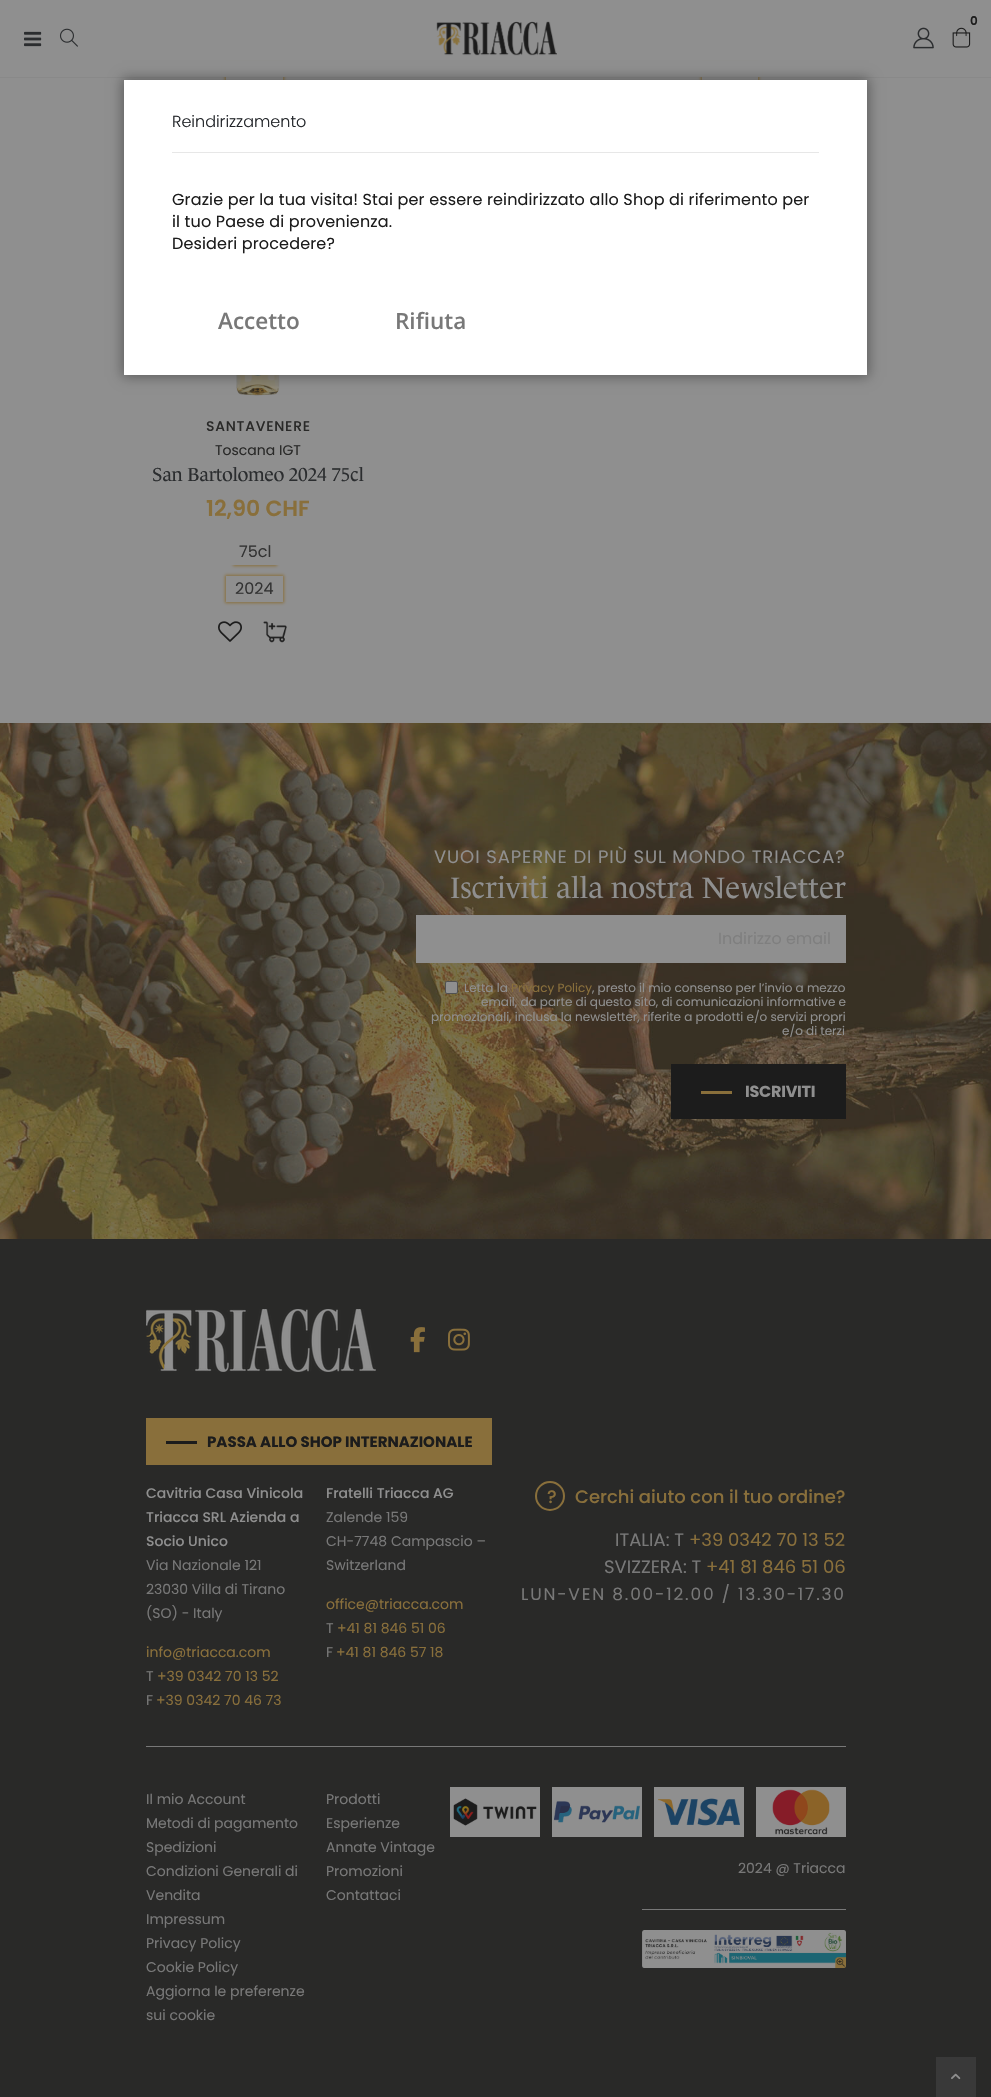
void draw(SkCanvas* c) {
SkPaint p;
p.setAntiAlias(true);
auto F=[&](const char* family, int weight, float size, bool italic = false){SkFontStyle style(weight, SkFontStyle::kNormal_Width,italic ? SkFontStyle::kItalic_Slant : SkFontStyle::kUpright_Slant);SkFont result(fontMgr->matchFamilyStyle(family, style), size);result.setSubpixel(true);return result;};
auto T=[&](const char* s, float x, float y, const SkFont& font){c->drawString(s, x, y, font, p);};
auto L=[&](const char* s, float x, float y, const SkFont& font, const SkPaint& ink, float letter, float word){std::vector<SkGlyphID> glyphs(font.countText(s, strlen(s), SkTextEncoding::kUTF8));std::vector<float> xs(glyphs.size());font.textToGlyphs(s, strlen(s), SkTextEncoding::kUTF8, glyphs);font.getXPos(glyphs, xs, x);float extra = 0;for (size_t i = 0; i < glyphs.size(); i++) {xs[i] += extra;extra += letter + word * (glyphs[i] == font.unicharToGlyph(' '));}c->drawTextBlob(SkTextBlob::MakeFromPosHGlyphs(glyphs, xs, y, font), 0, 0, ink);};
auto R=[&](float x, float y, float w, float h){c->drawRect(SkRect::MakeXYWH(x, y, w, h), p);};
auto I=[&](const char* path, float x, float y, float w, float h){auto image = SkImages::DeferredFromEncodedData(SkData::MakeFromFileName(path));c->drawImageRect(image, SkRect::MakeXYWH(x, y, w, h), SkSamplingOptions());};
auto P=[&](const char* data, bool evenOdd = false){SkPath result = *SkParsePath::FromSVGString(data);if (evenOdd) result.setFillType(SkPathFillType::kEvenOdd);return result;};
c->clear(0xff8f8f8f);
c->save();
c->clipPath(P("M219 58h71v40h-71zm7 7h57v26h-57z",true),true);
p.setColor(0xff896f3b);
p.setMaskFilter(SkMaskFilter::MakeBlur(kNormal_SkBlurStyle, 1.5));
c->drawRect(SkRect::MakeXYWH(225,64,59,28),p);
p.setMaskFilter(nullptr);
c->restore();
c->save();
c->clipPath(P("M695 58h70v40h-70zm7 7h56v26h-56z",true),true);
p.setMaskFilter(SkMaskFilter::MakeBlur(kNormal_SkBlurStyle, 1.5));
c->drawRect(SkRect::MakeXYWH(701,64,58,28),p);
p.setMaskFilter(nullptr);
c->restore();
p.setColor(0x0f1c1c1c);
R(0,77,991,1);
p.setColor(0xff8f8f8f);
R(222,61,540,16);
I("1.png",24,31,18,16);
I("2.png",59,28,19,19);
I("3.png",436,21,121,35);
auto f1 = F("Poppins",600,12);
p.setColor(0xff1c1c1c);
T("0",970,25,f1);
I("4.png",952,27,19,21);
I("5.png",913,27,21,22);
I("6.png",236,375,44,21);
auto f2 = F("Poppins",500,14);
p.setColor(0xff292928);
L("SANTAVENERE",206,431,f2,p,.75,0);
auto f3 = F("Poppins",400,14);
T("Toscana IGT",215,455,f3);
auto f4 = F("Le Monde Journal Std",400,19);
p.setColor(0xff2b2d2f);
L("San Bartolomeo 2024 75cl",152,481,f4,p,-.2,0);
auto f5 = F("Poppins",600,22);
p.setColor(0xff896f3b);
T("12,90 CHF",206,516,f5);
c->save();
c->clipRect(SkRect::MakeXYWH(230,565,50,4));
p.setMaskFilter(SkMaskFilter::MakeBlur(kNormal_SkBlurStyle, 1.5));
c->drawRect(SkRect::MakeXYWH(233,546,44,20),p);
p.setMaskFilter(nullptr);
c->restore();
auto f6 = F("Poppins",400,16);
p.setColor(0xff333333);
T("75cl",239,557,f6);
c->save();
c->clipPath(P("M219 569h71v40h-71zm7 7h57v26h-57z",true),true);
p.setColor(0xff896f3b);
p.setMaskFilter(SkMaskFilter::MakeBlur(kNormal_SkBlurStyle, 1.5));
c->drawRect(SkRect::MakeXYWH(225,575,59,28),p);
p.setMaskFilter(nullptr);
c->restore();
p.setColor(0xff333333);
T("2024",235,594,f6);
I("7.png",218,621,24,21);
I("8.png",263,621,24,22);
I("9.png",0,723,991,516);
auto f7 = F("Poppins",400,18);
p.setColor(0xff8f8f8f);
L("VUOI SAPERNE DI PIÙ SUL MONDO TRIACCA?",434,863,f7,p,.9,0);
auto f8 = F("Le Monde Journal Std",400,30);
T("Iscriviti alla nostra Newsletter",450,898,f8);
R(416,915,430,48);
p.setColor(0xff7f7f7f);
T("Indirizzo email",718,944,f6);
p.setColor(0xff8f8f8f);
c->drawRoundRect(SkRect::MakeXYWH(445.5,981.5,12,12),1.5,1.5,p);
p.setStroke(true);
p.setStrokeWidth(1);
p.setColor(0xff515151);
c->drawRoundRect(SkRect::MakeXYWH(445.5,981.5,12,12),1.5,1.5,p);
auto f9 = F("Poppins",400,12);
p.setStroke(false);
p.setColor(0xff8f8f8f);
T("Letta la",464,992,f9);
p.setColor(0xff896f3b);
T("Privacy Policy",511,992,f9);
p.setColor(0xff8f8f8f);
T(", presto il mio consenso per l’invio a mezzo",592,992,f9);
T("email, da parte di questo sito, di comunicazioni informative e",481,1006,f9);
T("promozionali, inclusa la newsletter, riferite a prodotti e/o servizi propri",431,1021,f9);
T("e/o di terzi",782,1035,f9);
p.setColor(0xff1c1c1c);
R(671,1064,175,55);
p.setColor(0xff896f3b);
R(701,1091,31,3);
auto f10 = F("Poppins",700,16);
p.setColor(0xff8f8f8f);
L("ISCRIVITI",745,1097,f10,p,-.25,0);
p.setColor(0xff292928);
R(0,1239,991,858);
I("10.png",146,1309,230,63);
I("11.png",410,1327,15,26);
I("12.png",448,1328,22,23);
p.setColor(0xff896f3b);
R(146,1418,346,47);
p.setColor(0xff1c1c1c);
R(166,1441,31,3);
auto f11 = F("Poppins",700,15);
T("PASSA ALLO SHOP INTERNAZIONALE",207,1447,f11);
p.setColor(0xff8f8f8f);
T("Cavitria Casa Vinicola",146,1498,f2);
T("Triacca SRL Azienda a",146,1522,f2);
T("Socio Unico",146,1546,f2);
p.setColor(0xff787878);
T("Via Nazionale 121",146,1570,f3);
T("23030 Villa di Tirano",146,1594,f3);
T("(SO) - Italy",146,1618,f3);
p.setColor(0xff896f3b);
T("info@triacca.com",146,1657,f3);
p.setColor(0xff787878);
T("T",146,1681,f3);
p.setColor(0xff896f3b);
T("+39 0342 70 13 52",157,1681,f3);
p.setColor(0xff787878);
T("F",146,1705,f3);
p.setColor(0xff896f3b);
T("+39 0342 70 46 73",156,1705,f3);
p.setColor(0xff8f8f8f);
T("Fratelli Triacca AG",326,1498,f2);
p.setColor(0xff787878);
T("Zalende 159",326,1522,f3);
T("CH-7748 Campascio –",326,1546,f3);
T("Switzerland",326,1570,f3);
p.setColor(0xff896f3b);
T("office@triacca.com",326,1609,f3);
p.setColor(0xff787878);
T("T",326,1633,f3);
p.setColor(0xff896f3b);
T("+41 81 846 51 06",337,1633,f3);
p.setColor(0xff787878);
T("F",326,1657,f3);
p.setColor(0xff896f3b);
T("+41 81 846 57 18",336,1657,f3);
p.setStroke(true);
p.setStrokeWidth(2);
c->drawCircle(550,1496,14,p);
auto f12 = F("Poppins",500,18);
p.setStroke(false);
T("?",547,1503,f12);
T("Cerchi aiuto con il tuo ordine?",575,1503,f12);
p.setColor(0xff787878);
T("ITALIA: T",615,1546,f7);
p.setColor(0xff896f3b);
T("+39 0342 70 13 52",689,1546,f7);
p.setColor(0xff787878);
T("SVIZZERA: T",604,1573,f7);
p.setColor(0xff896f3b);
T("+41 81 846 51 06",706,1573,f7);
auto f13 = F("Poppins",400,17);
p.setColor(0xff787878);
L("LUN-VEN 8.00-12.00 / 13.30-17.30",521,1600,f13,p,1.8,0);
R(146,1746,700,1);
T("Il mio Account",146,1804,f3);
T("Metodi di pagamento",146,1828,f3);
T("Spedizioni",146,1852,f3);
T("Condizioni Generali di",146,1876,f3);
T("Vendita",146,1900,f3);
T("Impressum",146,1924,f3);
T("Privacy Policy",146,1948,f3);
T("Cookie Policy",146,1972,f3);
T("Aggiorna le preferenze",146,1996,f3);
T("sui cookie",146,2020,f3);
T("Prodotti",326,1804,f3);
T("Esperienze",326,1828,f3);
T("Annate Vintage",326,1852,f3);
T("Promozioni",326,1876,f3);
T("Contattaci",326,1900,f3);
I("13.png",450,1787,90,50);
I("14.png",552,1787,90,50);
I("15.png",654,1787,90,50);
I("16.png",756,1787,90,50);
T("2024 @ Triacca",738,1873,f3);
R(642,1909,204,1);
I("17.png",642,1930,204,38);
p.setColor(0xff393939);
R(936,2057,40,40);
I("18.png",951,2073,10,7);
p.setColor(0x59000000);
p.setMaskFilter(SkMaskFilter::MakeBlur(kNormal_SkBlurStyle, 6));
c->drawRect(SkRect::MakeXYWH(122,78,747,299),p);
p.setMaskFilter(nullptr);
p.setColor(0xffffffff);
R(124,80,743,295);
p.setColor(0xffe7e7e7);
R(172,152,647,1);
auto f14 = F("Poppins",300,16);
p.setColor(0xff222529);
T("Reindirizzamento",172,127,f14);
p.setColor(0xff1c1c1c);
L("Grazie per la tua visita! Stai per essere reindirizzato allo Shop di riferimento per",172,205,f6,p,.15,0);
L("il tuo Paese di provenienza.",172,227,f6,p,.15,0);
L("Desideri procedere?",172,249,f6,p,.15,0);
auto f15 = F("Open Sans",600,22.5);
p.setColor(0xff787878);
T("Accetto",218,329,f15);
T("Rifiuta",395,329,f15);
}
